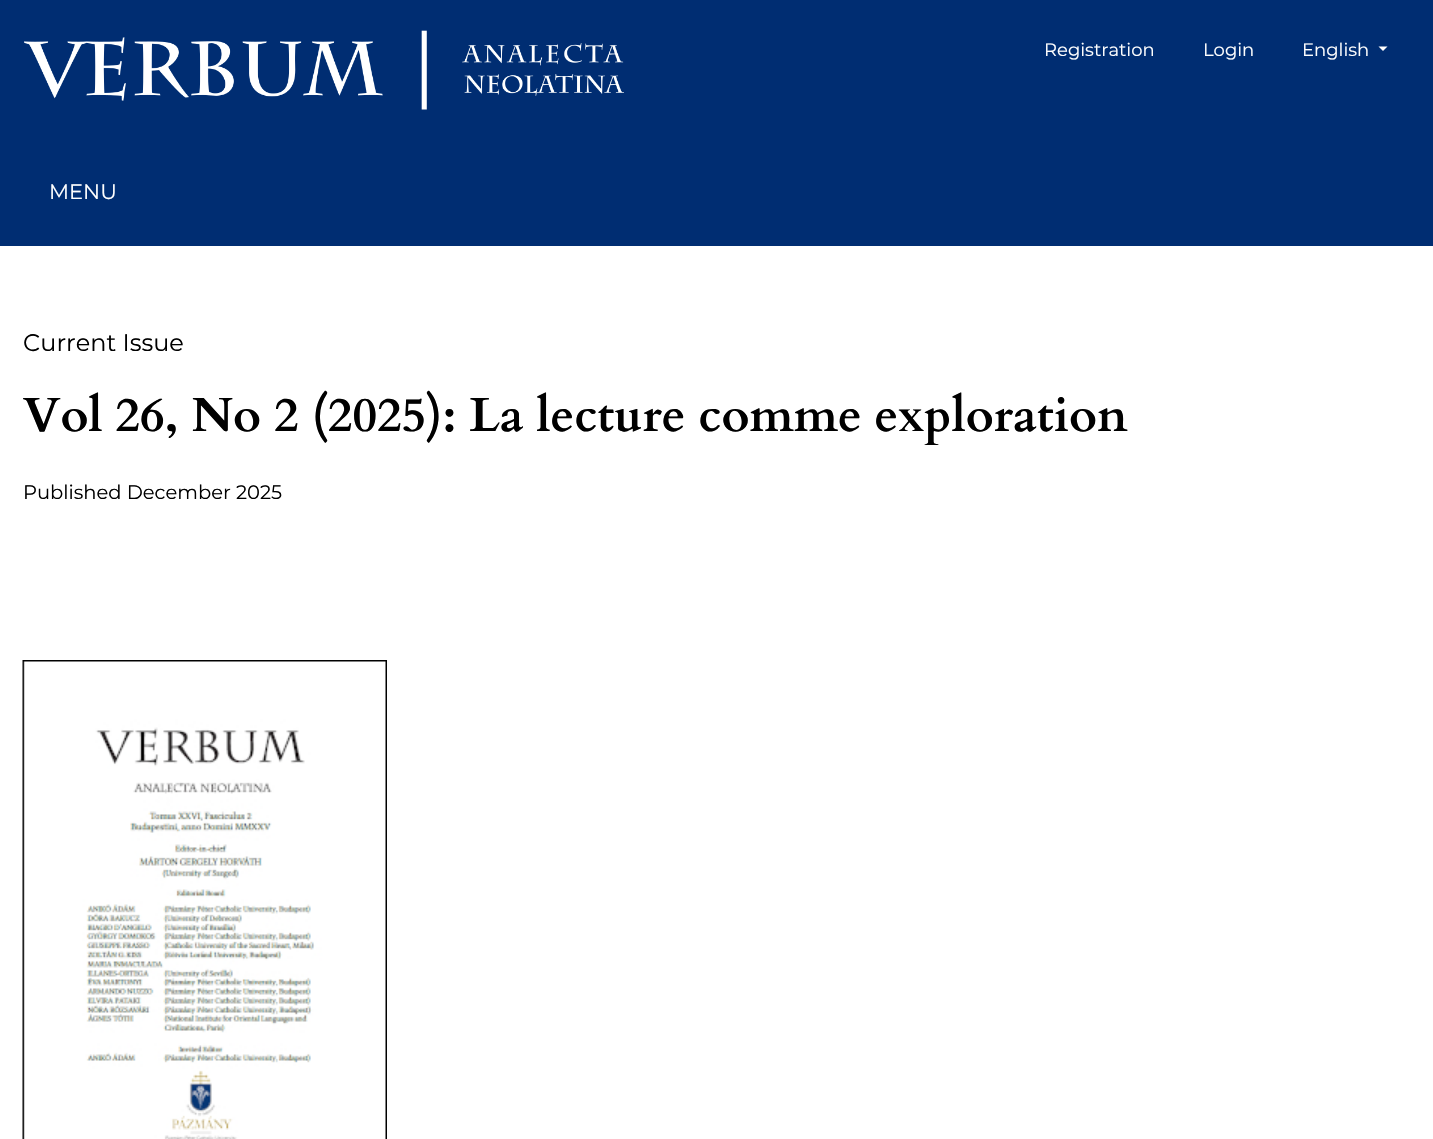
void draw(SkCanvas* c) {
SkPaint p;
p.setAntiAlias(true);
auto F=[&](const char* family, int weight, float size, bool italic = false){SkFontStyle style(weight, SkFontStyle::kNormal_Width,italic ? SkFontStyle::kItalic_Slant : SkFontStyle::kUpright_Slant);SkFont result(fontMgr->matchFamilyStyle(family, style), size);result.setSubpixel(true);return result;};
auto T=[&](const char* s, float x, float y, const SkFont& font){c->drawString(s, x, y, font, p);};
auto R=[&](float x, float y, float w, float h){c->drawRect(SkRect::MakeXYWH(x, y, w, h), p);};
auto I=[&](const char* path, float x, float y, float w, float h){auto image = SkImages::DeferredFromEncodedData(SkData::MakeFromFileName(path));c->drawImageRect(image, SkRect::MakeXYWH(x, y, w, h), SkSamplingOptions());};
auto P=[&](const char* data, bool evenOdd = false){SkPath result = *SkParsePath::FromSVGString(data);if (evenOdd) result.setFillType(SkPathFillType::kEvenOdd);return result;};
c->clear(0xffffffff);
p.setColor(0xff002d72);
R(0,0,1433,246);
I("1.png",24,30,600,80);
auto f1 = F("Montserrat",400,18);
p.setColor(0xffffffff);
T("Registration",1044,56,f1);
T("Login",1203,56,f1);
T("English",1302,56,f1);
c->drawPath(P("M1378.5 46.5h9l-4.5 4.5z"),p);
auto f2 = F("Montserrat",400,21);
T("MENU",49,199,f2);
auto f3 = F("Montserrat",400,24);
p.setColor(0xff000000);
T("Current Issue",23,351,f3);
auto f4 = F("Cardo",700,48);
T("Vol 26, No 2 (2025): La lecture comme exploration",23,431,f4);
auto f5 = F("Montserrat",400,19.5);
T("Published December 2025",23,499,f5);
I("2.png",22,660,365,479);
}
